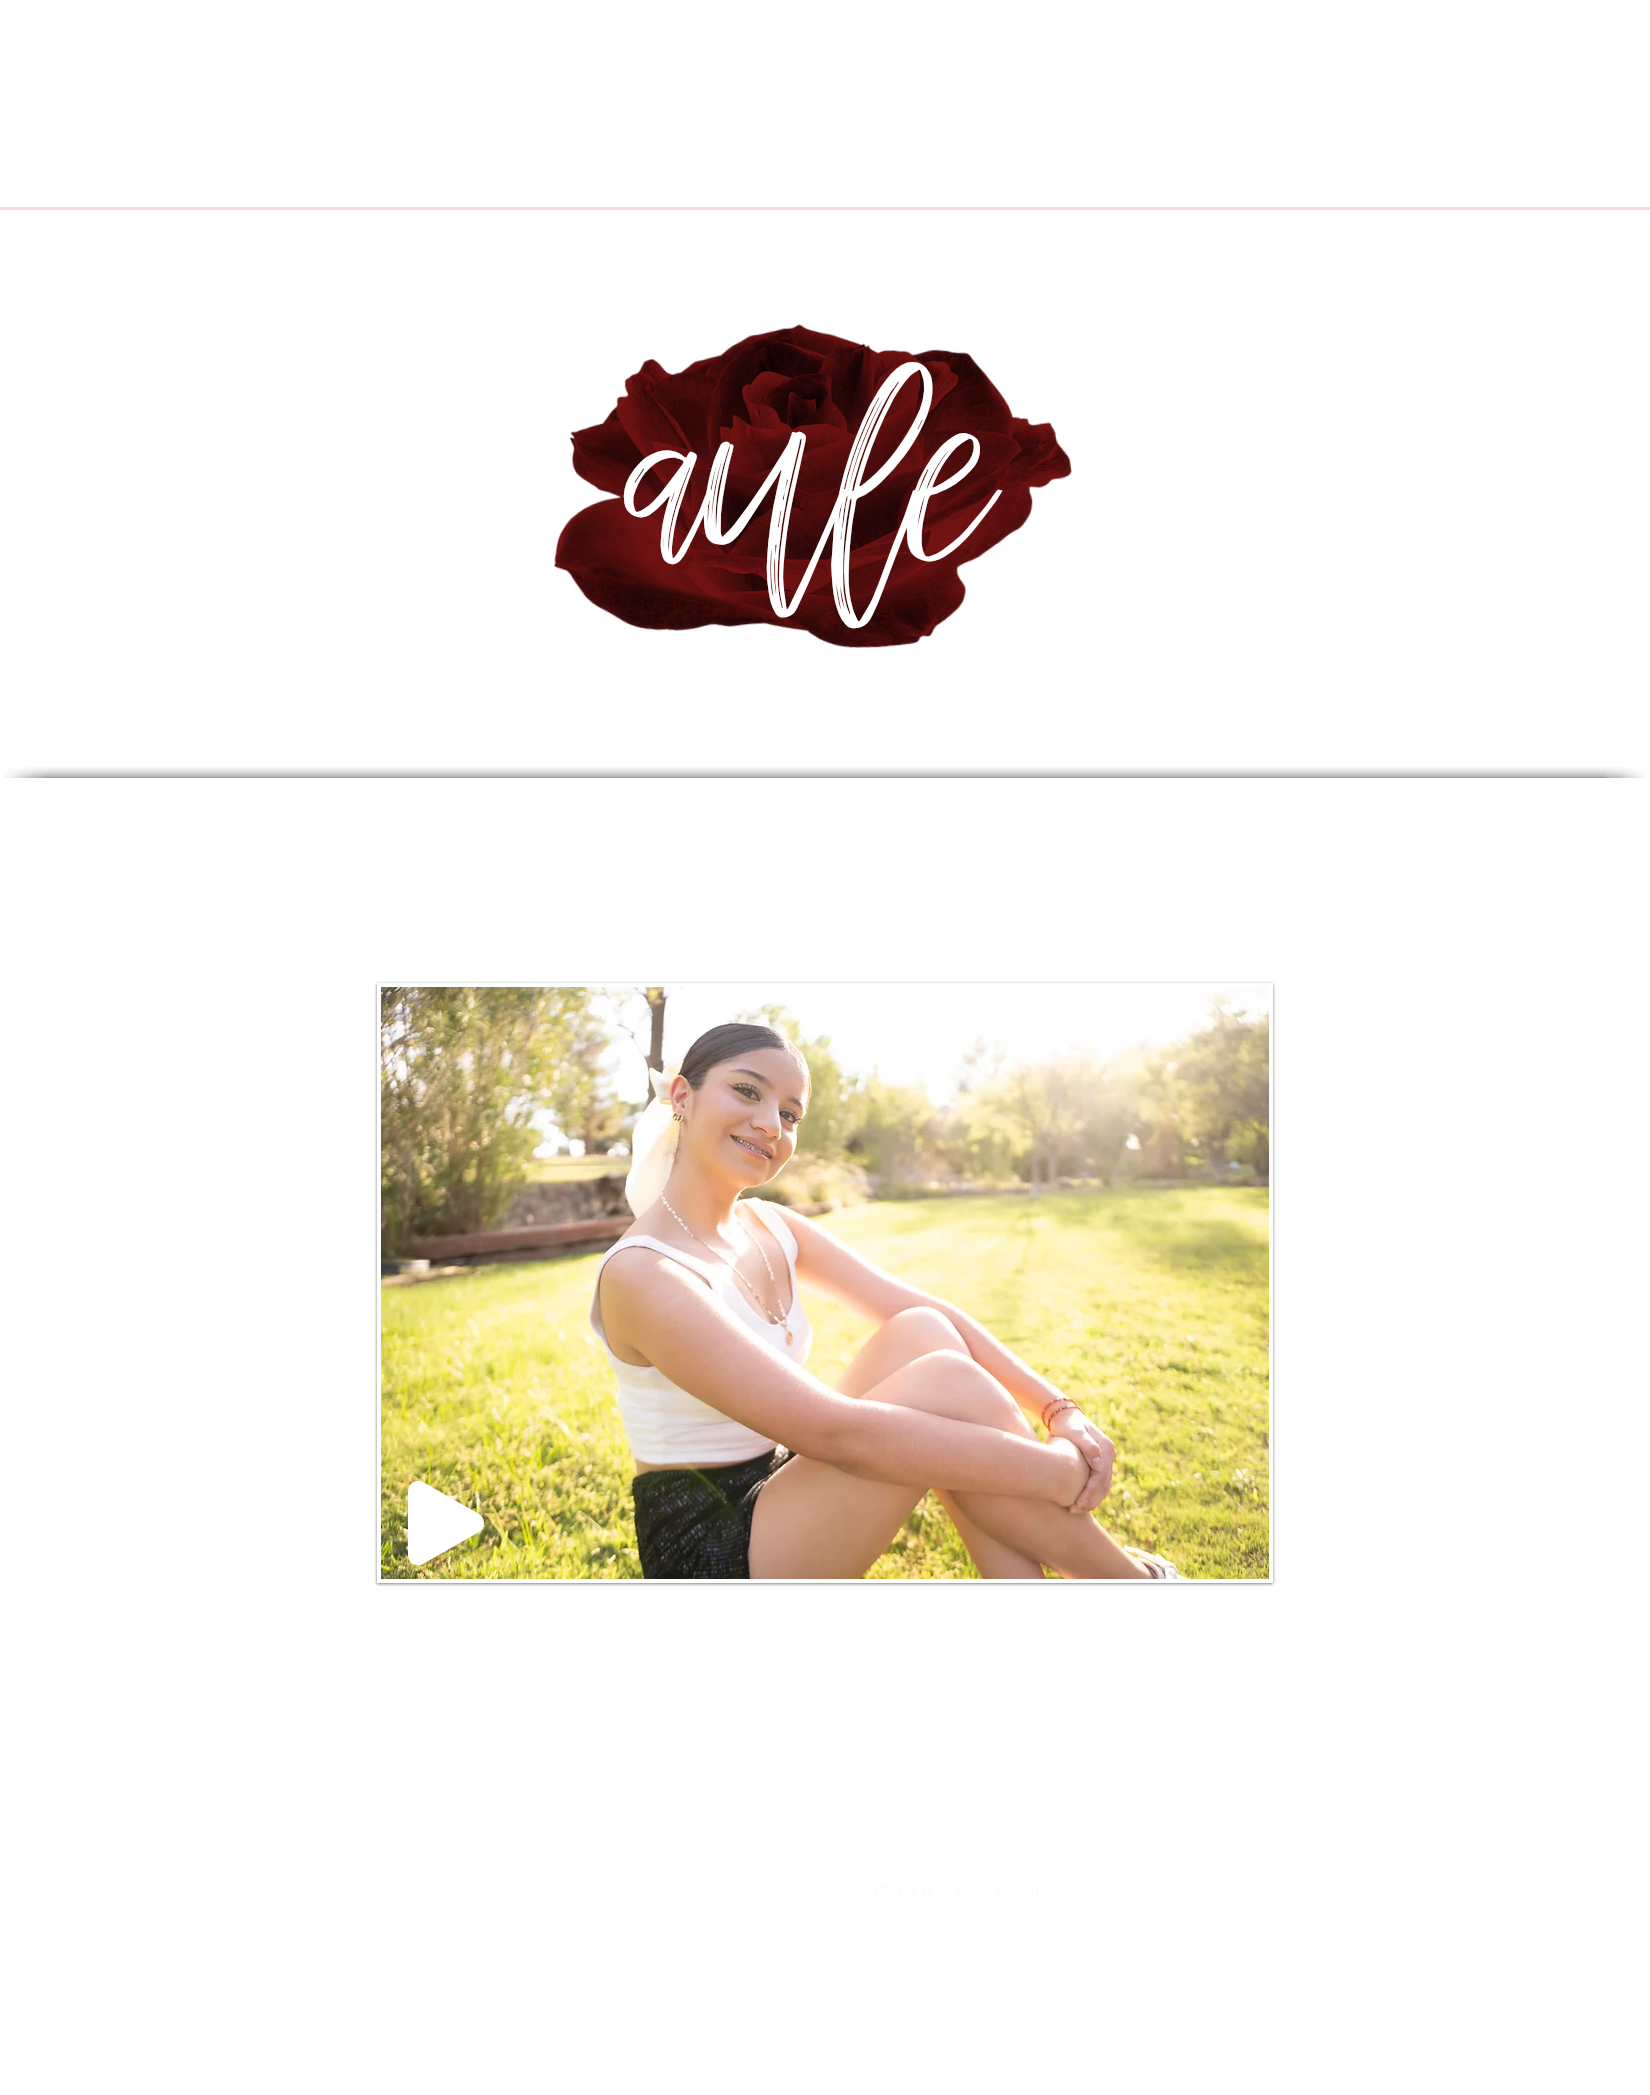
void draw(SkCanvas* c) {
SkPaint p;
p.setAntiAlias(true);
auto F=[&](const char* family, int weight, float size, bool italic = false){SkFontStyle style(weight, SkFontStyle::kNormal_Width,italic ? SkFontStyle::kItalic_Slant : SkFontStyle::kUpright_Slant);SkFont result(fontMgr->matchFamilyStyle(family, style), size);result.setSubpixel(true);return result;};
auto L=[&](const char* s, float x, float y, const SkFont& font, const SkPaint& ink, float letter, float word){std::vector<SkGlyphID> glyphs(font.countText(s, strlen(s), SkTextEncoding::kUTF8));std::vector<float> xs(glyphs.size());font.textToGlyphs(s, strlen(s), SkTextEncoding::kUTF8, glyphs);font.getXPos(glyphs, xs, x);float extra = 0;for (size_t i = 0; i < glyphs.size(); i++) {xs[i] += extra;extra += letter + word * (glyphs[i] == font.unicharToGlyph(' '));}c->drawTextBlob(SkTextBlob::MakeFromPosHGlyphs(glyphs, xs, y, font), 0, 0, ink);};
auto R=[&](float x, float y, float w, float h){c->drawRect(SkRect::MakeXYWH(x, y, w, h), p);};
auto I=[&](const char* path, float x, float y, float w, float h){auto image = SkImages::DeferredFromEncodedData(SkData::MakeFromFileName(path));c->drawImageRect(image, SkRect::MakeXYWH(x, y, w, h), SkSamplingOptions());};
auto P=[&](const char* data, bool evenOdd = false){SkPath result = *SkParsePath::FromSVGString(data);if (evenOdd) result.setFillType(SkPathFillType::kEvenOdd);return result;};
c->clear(0xffffffff);
p.setColor(0xfff7dada);
R(0,207,1650,3);
I("1.png",554,324,519,325);
auto f1 = F("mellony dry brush",400,230);
p.setColor(0xffffffff);
L("aule",625,559,f1,p,2.5,0);
I("2.png",45,767,1560,11);
I("3.png",3,767,42,11);
I("4.png",1605,767,42,11);
c->save();
c->clipPath(P("M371 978h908v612h-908zm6 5h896v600h-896z",true),true);
p.setColor(0x80000000);
p.setMaskFilter(SkMaskFilter::MakeBlur(kNormal_SkBlurStyle, 1.5));
c->drawRect(SkRect::MakeXYWH(377,984,896,600),p);
p.setMaskFilter(nullptr);
c->restore();
I("5.png",381,987,888,592);
p.setColor(0xffffffff);
c->drawPath(P("M418 1565c-2 0-4-1-5-1c-4-2-5-6-5-10v-62c0-3 1-6 3-8c3-3 8-4 12-2l56 32c3 2 5 5 5 9c0 4-2 7-5 9l-56 32c-1 1-3 1-5 1"),p);
I("6.png",873,1885,172,13);
}
